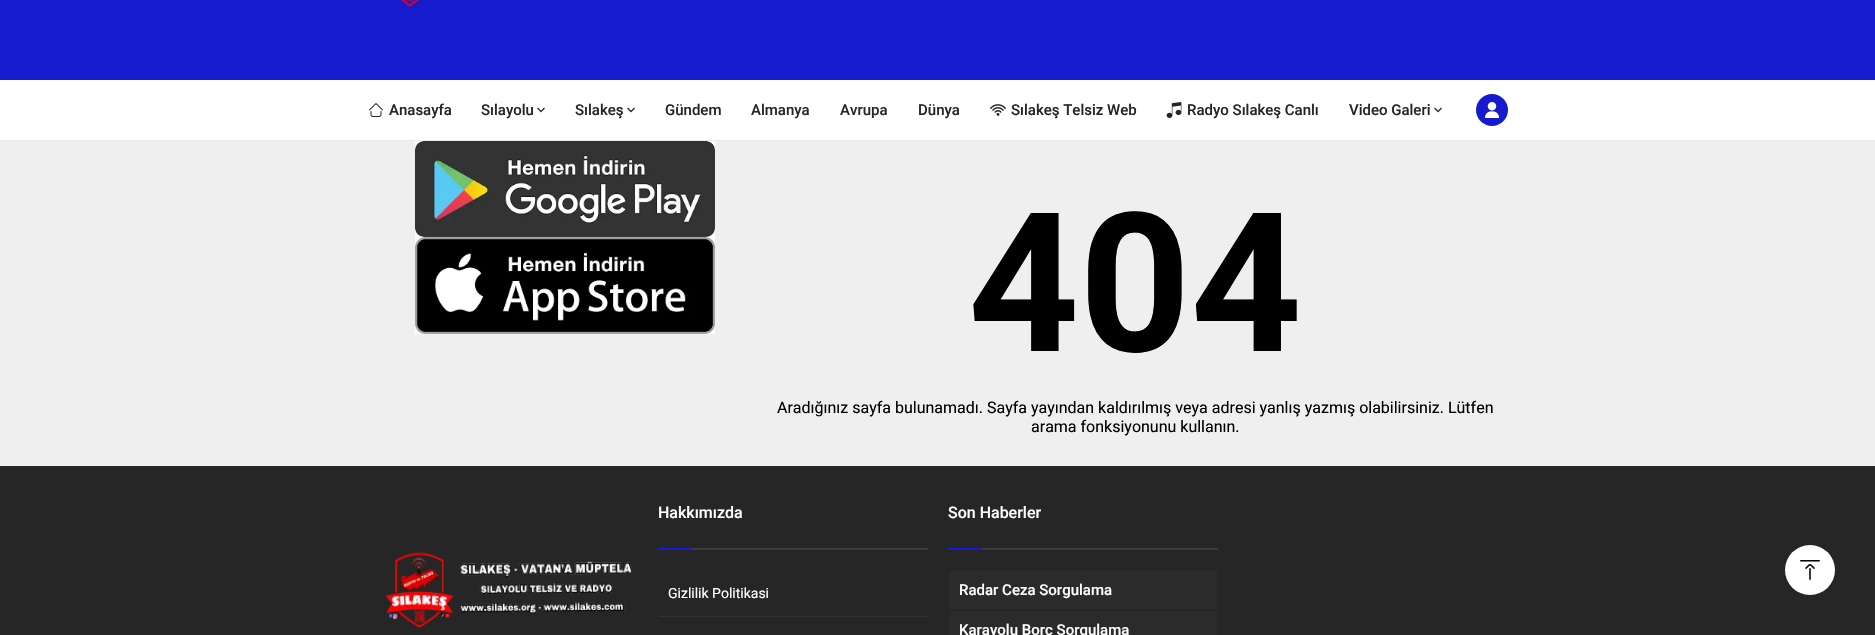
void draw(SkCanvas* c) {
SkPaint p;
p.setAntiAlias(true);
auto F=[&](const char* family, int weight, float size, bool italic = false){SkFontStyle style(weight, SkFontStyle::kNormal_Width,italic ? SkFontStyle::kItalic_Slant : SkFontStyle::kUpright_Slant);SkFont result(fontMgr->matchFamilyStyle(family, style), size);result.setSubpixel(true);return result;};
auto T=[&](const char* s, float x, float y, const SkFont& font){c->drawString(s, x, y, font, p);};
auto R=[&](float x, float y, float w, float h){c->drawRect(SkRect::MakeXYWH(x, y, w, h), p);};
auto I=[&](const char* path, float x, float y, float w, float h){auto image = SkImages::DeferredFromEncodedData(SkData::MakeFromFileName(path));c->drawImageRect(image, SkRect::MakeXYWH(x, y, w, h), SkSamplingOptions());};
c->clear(0xffefefef);
p.setColor(0xffeaeaea);
R(0,140,1875,1);
p.setColor(0xff161cce);
R(0,0,1875,80);
I("1.png",401,0,18,8);
p.setColor(0xffffffff);
R(0,80,1875,60);
I("2.png",369,103,14,14);
auto f1 = F("Roboto",500,15);
p.setColor(0xff262626);
T("Anasayfa",389,115,f1);
T("Sılayolu",481,115,f1);
I("3.png",537,107,8,6);
T("Sılakeş",575,115,f1);
I("3.png",627,107,8,6);
T("Gündem",665,115,f1);
T("Almanya",751,115,f1);
T("Avrupa",840,115,f1);
T("Dünya",918,115,f1);
I("4.png",990,104,16,12);
T("Sılakeş Telsiz Web",1011,115,f1);
I("5.png",1166,102,16,16);
T("Radyo Sılakeş Canlı",1187,115,f1);
T("Video Galeri",1349,115,f1);
I("3.png",1434,107,8,6);
p.setColor(0xff161cce);
c->drawCircle(1492,110,16,p);
I("6.png",1485,102,14,16);
I("7.png",415,141,300,96);
I("8.png",415,237,300,97);
auto f2 = F("Roboto",700,194);
p.setColor(0xff000000);
T("404",968,351,f2);
auto f3 = F("Roboto",400,16);
T("Aradığınız sayfa bulunamadı. Sayfa yayından kaldırılmış veya adresi yanlış yazmış olabilirsiniz. Lütfen",777,413,f3);
T("arama fonksiyonunu kullanın.",1031,432,f3);
p.setColor(0xff262626);
R(0,466,1875,169);
I("9.png",385,552,248,77);
p.setColor(0xff3c3c3c);
R(692,548,236,2);
auto f4 = F("Roboto",500,16);
p.setColor(0xffffffff);
T("Hakkımızda",658,518,f4);
p.setColor(0xff161cce);
R(658,548,34,2);
auto f5 = F("Roboto",400,14);
p.setColor(0xffffffff);
T("Gizlilik Politikasi",668,598,f5);
p.setColor(0xff313131);
R(658,616,270,1);
p.setColor(0xff3c3c3c);
R(982,548,236,2);
p.setColor(0xffffffff);
T("Son Haberler",948,518,f4);
p.setColor(0xff161cce);
R(948,548,34,2);
p.setColor(0xff2b2b2b);
R(949,571,268,38);
p.setColor(0xffffffff);
T("Radar Ceza Sorgulama",959,595,f1);
p.setColor(0xff2b2b2b);
R(949,611,268,24);
p.setColor(0xffffffff);
T("Karayolu Borç Sorgulama",959,635,f1);
c->drawCircle(1810,570,25,p);
I("10.png",1800,560,20,20);
}
